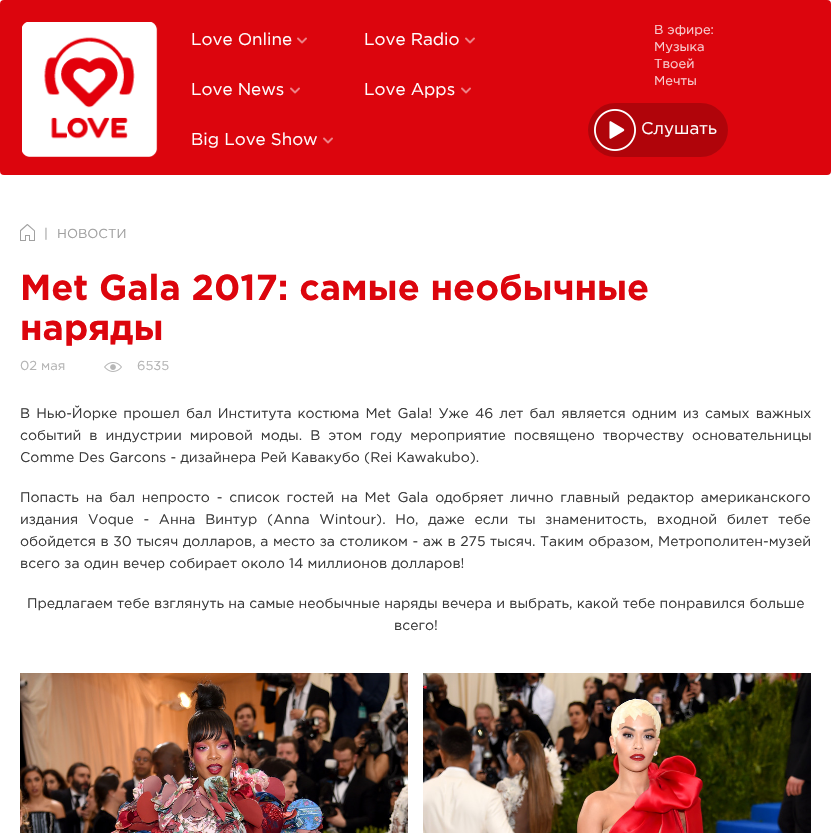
void draw(SkCanvas* c) {
SkPaint p;
p.setAntiAlias(true);
auto F=[&](const char* family, int weight, float size, bool italic = false){SkFontStyle style(weight, SkFontStyle::kNormal_Width,italic ? SkFontStyle::kItalic_Slant : SkFontStyle::kUpright_Slant);SkFont result(fontMgr->matchFamilyStyle(family, style), size);result.setSubpixel(true);return result;};
auto T=[&](const char* s, float x, float y, const SkFont& font){c->drawString(s, x, y, font, p);};
auto L=[&](const char* s, float x, float y, const SkFont& font, const SkPaint& ink, float letter, float word){std::vector<SkGlyphID> glyphs(font.countText(s, strlen(s), SkTextEncoding::kUTF8));std::vector<float> xs(glyphs.size());font.textToGlyphs(s, strlen(s), SkTextEncoding::kUTF8, glyphs);font.getXPos(glyphs, xs, x);float extra = 0;for (size_t i = 0; i < glyphs.size(); i++) {xs[i] += extra;extra += letter + word * (glyphs[i] == font.unicharToGlyph(' '));}c->drawTextBlob(SkTextBlob::MakeFromPosHGlyphs(glyphs, xs, y, font), 0, 0, ink);};
auto Q=[&](float x, float y, float w, float h, float radius){c->drawRoundRect(SkRect::MakeXYWH(x, y, w, h), radius, radius, p);};
auto I=[&](const char* path, float x, float y, float w, float h){auto image = SkImages::DeferredFromEncodedData(SkData::MakeFromFileName(path));c->drawImageRect(image, SkRect::MakeXYWH(x, y, w, h), SkSamplingOptions());};
c->clear(0xffffffff);
p.setColor(0xffdc050d);
Q(0,0,831,175,4);
I("1.png",22,22,136,135);
auto f1 = F("Gotham",400,17);
p.setColor(0xffffffff);
T("Love Online",191,45,f1);
I("2.png",297,37,10,7);
T("Love Radio",364,45,f1);
I("2.png",465,37,10,7);
T("Love News",191,95,f1);
I("2.png",290,87,10,7);
T("Love Apps",364,95,f1);
I("2.png",461,87,10,7);
T("Big Love Show",191,145,f1);
I("2.png",323,137,10,7);
auto f2 = F("Gotham",400,13);
p.setColor(0xfff8cdcf);
T("В эфире:",654,34,f2);
T("Музыка",654,51,f2);
T("Твоей",654,68,f2);
T("Мечты",654,85,f2);
p.setColor(0xffb0040a);
Q(588,103,140,54,27);
I("3.png",594,109,42,42);
p.setColor(0xffffffff);
T("Слушать",641,134,f1);
I("4.png",20,224,15,17);
p.setColor(0xffa0a0a0);
T("|",44,238,f2);
T("НОВОСТИ",57,238,f2);
auto f3 = F("Gotham",700,36);
p.setColor(0xffdc050d);
T("Met Gala 2017: самые необычные",20,300,f3);
T("наряды",20,340,f3);
p.setColor(0xffb4b4b4);
T("02 мая",20,370,f2);
I("5.png",104,362,18,10);
T("6535",137,370,f2);
auto f4 = F("Gotham",400,14);
p.setColor(0xff393939);
L("В Нью-Йорке прошел бал Института костюма Met Gala! Уже 46 лет бал является одним из самых важных",20,418,f4,p,0,1.9);
L("событий в индустрии мировой моды. В этом году мероприятие посвящено творчеству основательницы",20,440,f4,p,0,3.75);
T("Comme Des Garcons - дизайнера Рей Кавакубо (Rei Kawakubo).",20,462,f4);
L("Попасть на бал непросто - список гостей на Met Gala одобряет лично главный редактор американского",20,502,f4,p,0,2.6);
L("издания Voque - Анна Винтур (Anna Wintour). Но, даже если ты знаменитость, входной билет тебе",20,524,f4,p,0,5.5);
L("обойдется в 30 тысяч долларов, а место за столиком - аж в 275 тысяч. Таким образом, Метрополитен-музей",20,546,f4,p,0,.4);
T("всего за один вечер собирает около 14 миллионов долларов!",20,568,f4);
T("Предлагаем тебе взглянуть на самые необычные наряды вечера и выбрать, какой тебе понравился больше",27,608,f4);
T("всего!",394,630,f4);
I("6.png",20,673,388,160);
I("7.png",423,673,388,160);
}
